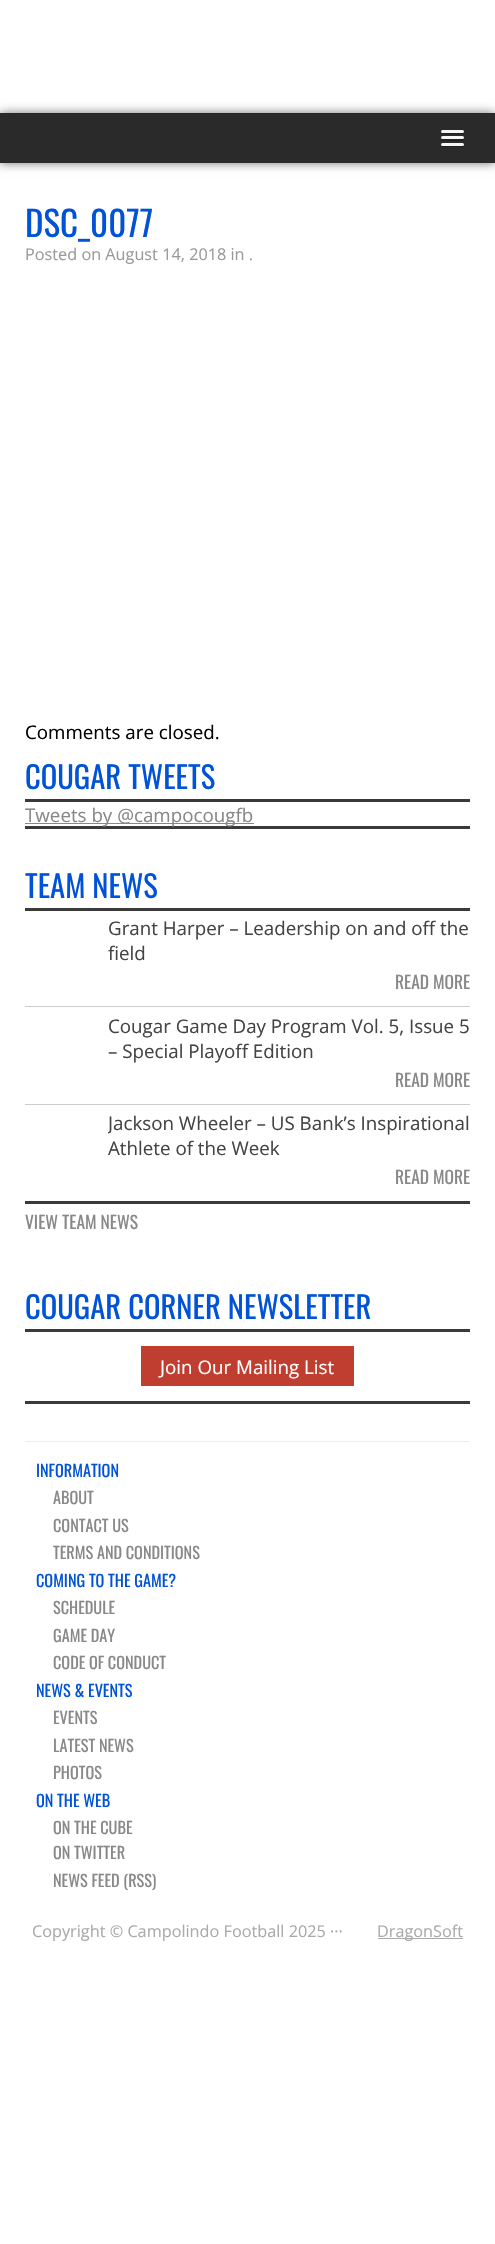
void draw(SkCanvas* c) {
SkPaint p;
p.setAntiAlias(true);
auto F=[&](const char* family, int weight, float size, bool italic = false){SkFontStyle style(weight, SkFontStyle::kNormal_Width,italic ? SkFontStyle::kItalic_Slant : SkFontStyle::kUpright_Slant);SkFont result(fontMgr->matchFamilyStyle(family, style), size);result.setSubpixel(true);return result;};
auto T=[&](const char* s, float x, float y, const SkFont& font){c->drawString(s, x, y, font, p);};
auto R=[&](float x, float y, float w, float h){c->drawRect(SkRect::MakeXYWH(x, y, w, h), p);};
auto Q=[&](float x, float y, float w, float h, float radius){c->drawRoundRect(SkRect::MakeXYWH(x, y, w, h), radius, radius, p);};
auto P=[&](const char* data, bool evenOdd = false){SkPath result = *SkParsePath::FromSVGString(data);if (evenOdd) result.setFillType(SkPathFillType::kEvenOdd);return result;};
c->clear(0xffffffff);
p.setColor(0x80000000);
p.setMaskFilter(SkMaskFilter::MakeBlur(kNormal_SkBlurStyle, 5));
c->drawRect(SkRect::MakeXYWH(0,113,495,50),p);
p.setMaskFilter(nullptr);
p.setColor(0x12000000);
p.setMaskFilter(SkMaskFilter::MakeBlur(kNormal_SkBlurStyle, 2.5));
c->drawRect(SkRect::MakeXYWH(0,114,495,50),p);
p.setMaskFilter(nullptr);
p.setColor(0xff2a2a2a);
R(0,113,495,50);
p.setColor(0xff202020);
c->drawPath(P("M441.5 131.5c-2.5 3 4 2.5 4.5 2.5h13c.5 0 7 .5 4.5-2.5c0 .5-.5 1-1 1h-20c-.5 0-1-.5-1-1z"),p);
p.setColor(0xfff5f5f5);
Q(441,130,23,3,1.5);
p.setColor(0xff202020);
c->drawPath(P("M441.5 138.5c-.5 0-.5 1-.5 1.5c.5 2 4 1 5 1h17c1-.5 1.5-2 .5-2.5c-1 .5-21 .5-22 0z"),p);
p.setColor(0xfff5f5f5);
Q(441,136,23,3,1.5);
p.setColor(0xff202020);
c->drawPath(P("M441.5 144.5l-.5 1.5c.5 2 4 1 5 1h13c1 0 4.5 1 5-1l-.5-1.5l-1 .5h-20z"),p);
p.setColor(0xfff5f5f5);
Q(441,143,23,3,1.5);
auto f1 = F("Oswald",400,35);
p.setColor(0xff0052d6);
T("DSC_0077",25,237,f1);
auto f2 = F("Open Sans",400,16.25);
p.setColor(0xff999999);
T("Posted on August 14, 2018 in .",25,260,f2);
auto f3 = F("Open Sans",400,18.75);
p.setColor(0xff000000);
T("Comments are closed.",25,739,f3);
p.setColor(0xff3b3a3b);
R(25,826,445,3);
R(25,799,445,3);
auto f4 = F("Oswald",400,30.6);
p.setColor(0xff0052d6);
T("COUGAR TWEETS",25,789,f4);
p.setColor(0xff888888);
R(25,823,229,1);
T("Tweets by @campocougfb",25,822,f3);
p.setColor(0xff3b3a3b);
R(25,1201,445,3);
R(25,908,445,3);
p.setColor(0xff0052d6);
T("TEAM NEWS",25,898,f4);
p.setColor(0xff444444);
T("Grant Harper – Leadership on and off the",108,935,f3);
T("field",108,960,f3);
auto f5 = F("Oswald",400,17.5);
p.setColor(0xff888888);
T("READ MORE",395,989,f5);
p.setColor(0xffcccccc);
R(25,1006,445,1);
p.setColor(0xff444444);
T("Cougar Game Day Program Vol. 5, Issue 5",108,1033,f3);
T("– Special Playoff Edition",108,1058,f3);
p.setColor(0xff888888);
T("READ MORE",395,1087,f5);
p.setColor(0xffcccccc);
R(25,1104,445,1);
c->save();
c->clipRect(SkRect::MakeXYWH(108,1108,362,52));
p.setColor(0xff444444);
T("Jackson Wheeler – US Bank’s Inspirational",108,1130,f3);
c->restore();
T("Athlete of the Week",108,1155,f3);
p.setColor(0xff888888);
T("READ MORE",395,1184,f5);
T("VIEW TEAM NEWS",25,1229,f5);
p.setColor(0xff3b3a3b);
R(25,1401,445,3);
R(25,1329,445,3);
p.setColor(0xff0052d6);
T("COUGAR CORNER NEWSLETTER",25,1319,f4);
p.setColor(0xffc03e30);
R(141,1346,213,40);
p.setColor(0xffffffff);
T("Join Our Mailing List",160,1374,f3);
p.setColor(0xffeeeeee);
R(25,1441,445,1);
auto f6 = F("Oswald",400,16.25);
p.setColor(0xff0052d6);
T("INFORMATION",36,1477,f6);
p.setColor(0xff888888);
T("ABOUT",53,1504,f6);
T("CONTACT US",53,1532,f6);
T("TERMS AND CONDITIONS",53,1559,f6);
p.setColor(0xff0052d6);
T("COMING TO THE GAME?",36,1587,f6);
p.setColor(0xff888888);
T("SCHEDULE",53,1614,f6);
T("GAME DAY",53,1642,f6);
T("CODE OF CONDUCT",53,1669,f6);
p.setColor(0xff0052d6);
T("NEWS & EVENTS",36,1697,f6);
p.setColor(0xff888888);
T("EVENTS",53,1724,f6);
T("LATEST NEWS",53,1752,f6);
T("PHOTOS",53,1779,f6);
p.setColor(0xff0052d6);
T("ON THE WEB",36,1807,f6);
p.setColor(0xff888888);
T("ON THE CUBE",53,1834,f6);
T("ON TWITTER",53,1859,f6);
T("NEWS FEED (RSS)",53,1887,f6);
p.setColor(0xffaaaaaa);
T("Copyright © Campolindo Football 2025 ···",32,1937,f2);
R(378,1938,85,1);
T("DragonSoft",377,1937,f2);
}
